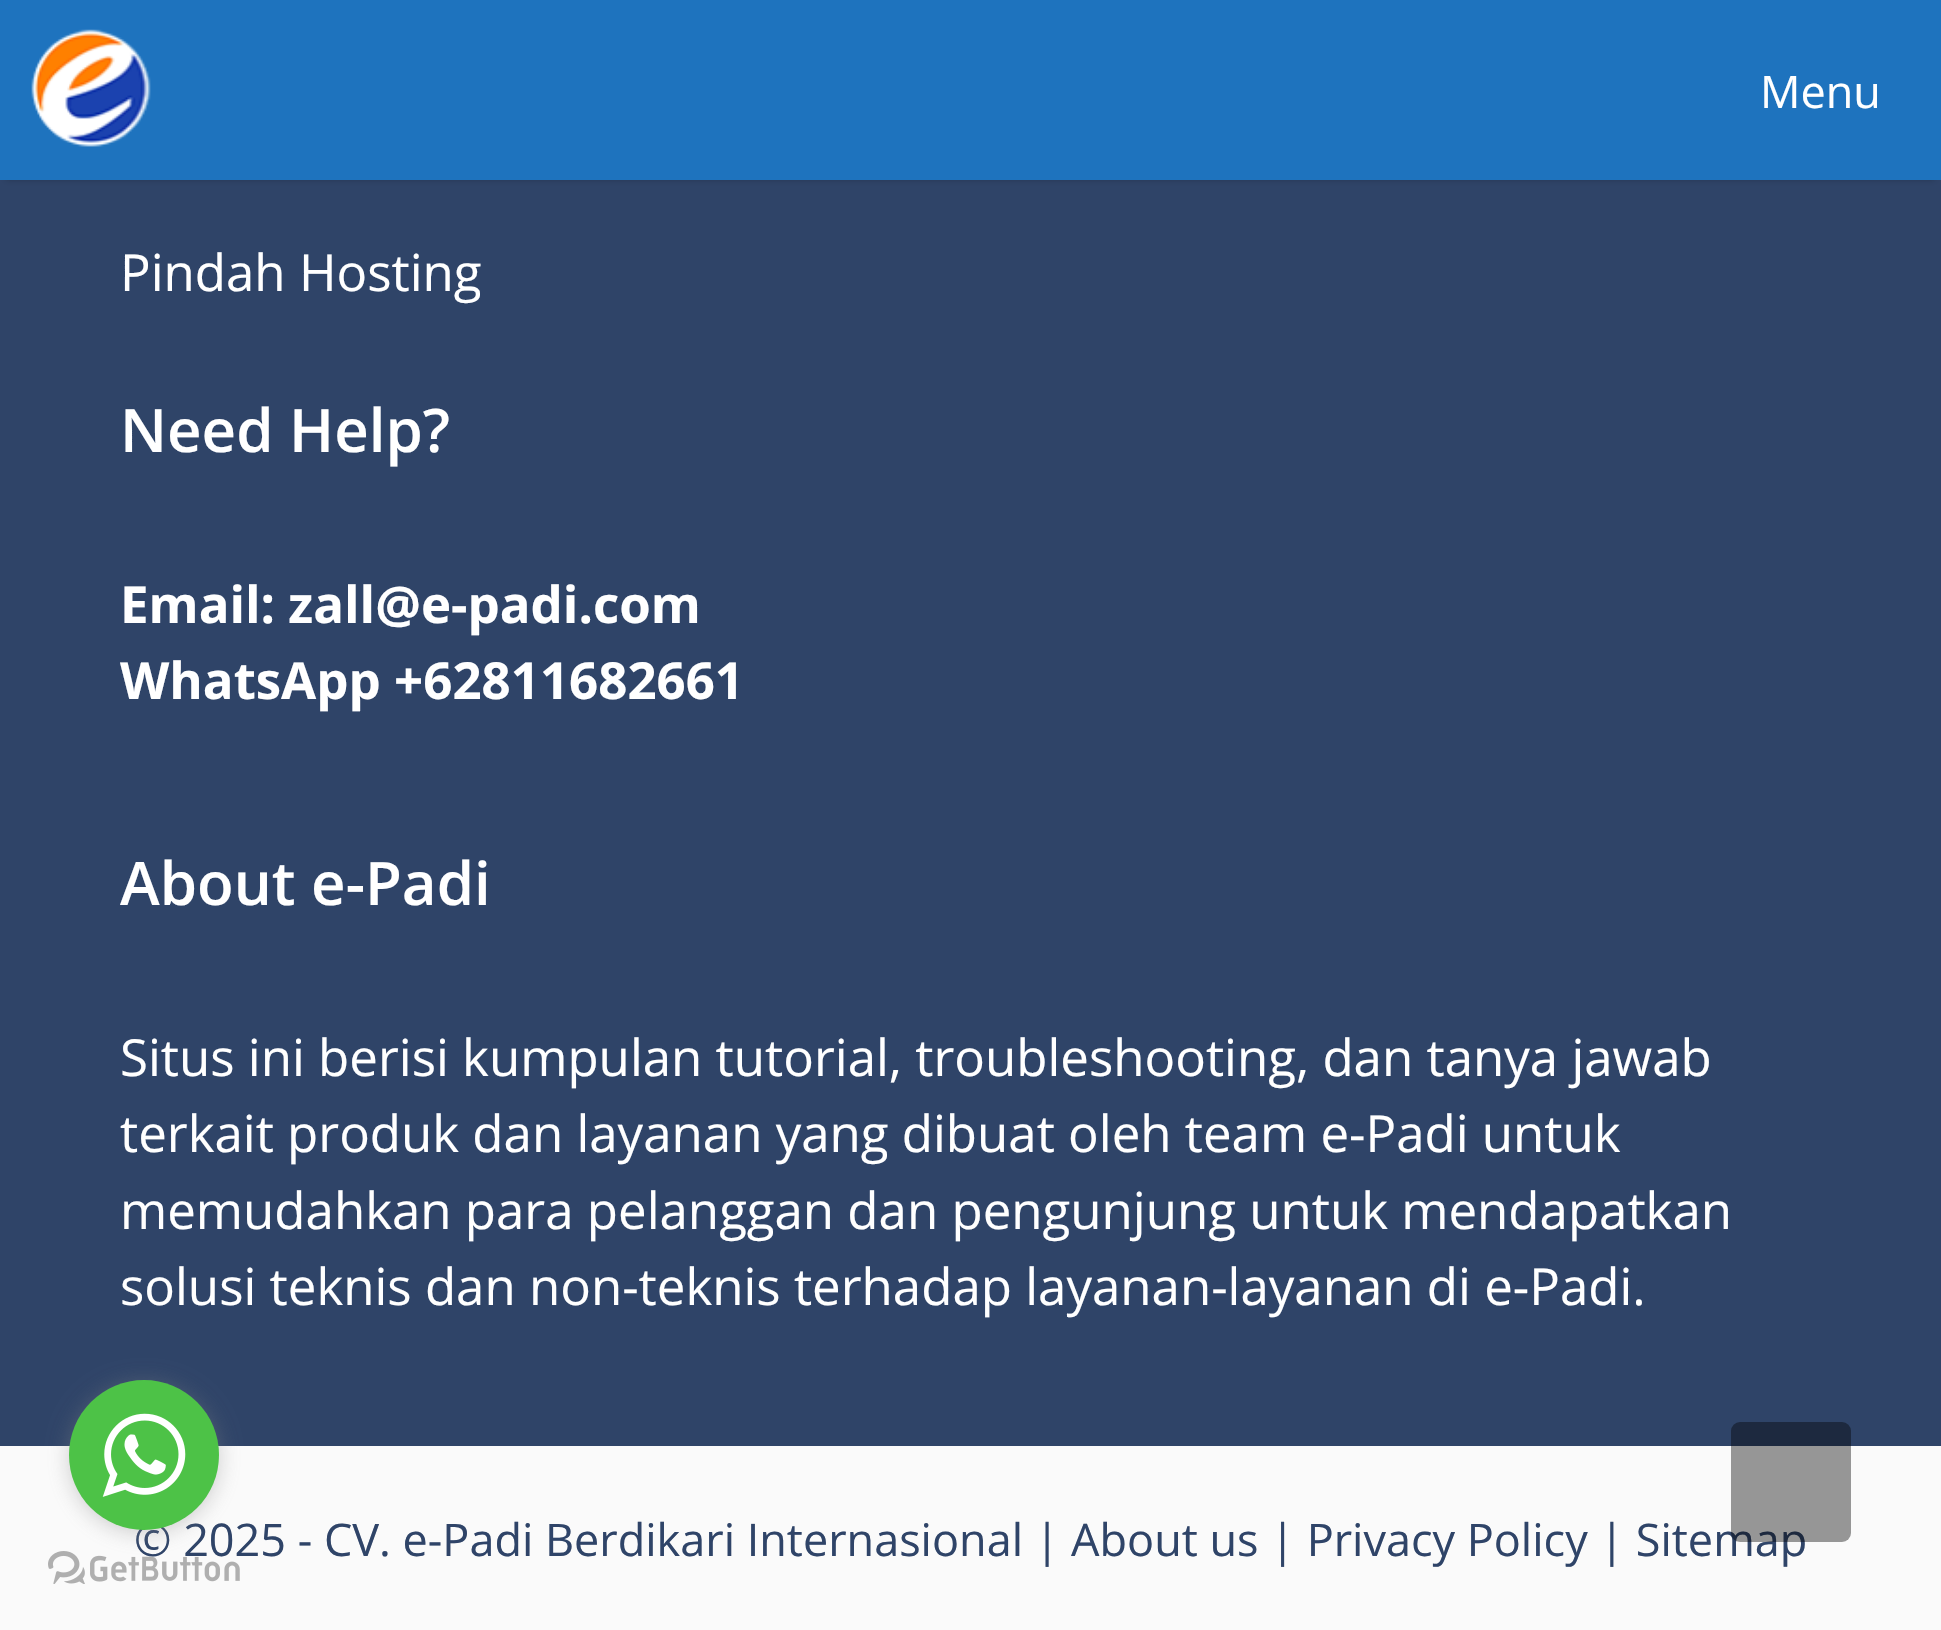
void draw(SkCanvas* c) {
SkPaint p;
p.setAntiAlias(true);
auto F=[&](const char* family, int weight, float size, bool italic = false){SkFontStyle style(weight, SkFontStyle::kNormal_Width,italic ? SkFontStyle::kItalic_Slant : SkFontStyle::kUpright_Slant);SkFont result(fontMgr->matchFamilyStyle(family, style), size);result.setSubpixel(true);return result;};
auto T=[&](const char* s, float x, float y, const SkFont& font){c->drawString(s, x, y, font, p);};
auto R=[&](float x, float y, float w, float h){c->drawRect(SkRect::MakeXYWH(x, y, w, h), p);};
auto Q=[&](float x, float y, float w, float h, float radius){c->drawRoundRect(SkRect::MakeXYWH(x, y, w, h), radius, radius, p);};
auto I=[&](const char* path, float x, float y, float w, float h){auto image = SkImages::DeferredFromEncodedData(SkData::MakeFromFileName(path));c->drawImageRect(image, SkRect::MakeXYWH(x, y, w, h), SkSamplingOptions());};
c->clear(0xfffafafa);
p.setColor(0xff2f4468);
R(0,180,1941,1266);
p.setColor(0x33000000);
p.setMaskFilter(SkMaskFilter::MakeBlur(kNormal_SkBlurStyle, 3));
c->drawRect(SkRect::MakeXYWH(6,12,1929,168),p);
p.setMaskFilter(nullptr);
p.setColor(0xff1e73be);
R(0,0,1941,180);
I("1.png",31,29,120,118);
auto f1 = F("Open Sans",400,45);
p.setColor(0xffffffff);
T("Menu",1760,108,f1);
auto f2 = F("Open Sans",400,51);
T("Pindah Hosting",120,291,f2);
auto f3 = F("Open Sans",600,60);
T("Need Help?",120,452,f3);
auto f4 = F("Open Sans",700,51);
T("Email: zall@e-padi.com",120,623,f4);
T("WhatsApp +62811682661",120,699,f4);
T("About e-Padi",120,905,f3);
T("Situs ini berisi kumpulan tutorial, troubleshooting, dan tanya jawab",120,1076,f2);
T("terkait produk dan layanan yang dibuat oleh team e-Padi untuk",120,1152,f2);
T("memudahkan para pelanggan dan pengunjung untuk mendapatkan",120,1229,f2);
T("solusi teknis dan non-teknis terhadap layanan-layanan di e-Padi.",120,1305,f2);
p.setColor(0xff2f4468);
T("© 2025 - CV. e-Padi Berdikari Internasional | About us | Privacy Policy | Sitemap",134,1556,f1);
I("3.png",48,1551,192,33);
p.setColor(0x66888888);
p.setMaskFilter(SkMaskFilter::MakeBlur(kNormal_SkBlurStyle, 10.5));
c->drawRoundRect(SkRect::MakeXYWH(69,1383,150,150),75,75,p);
p.setMaskFilter(nullptr);
p.setColor(0xff4dc247);
c->drawCircle(144,1455,75,p);
I("2.png",102,1413,84,84);
p.setColor(0x66000000);
Q(1731,1422,120,120,9);
}
